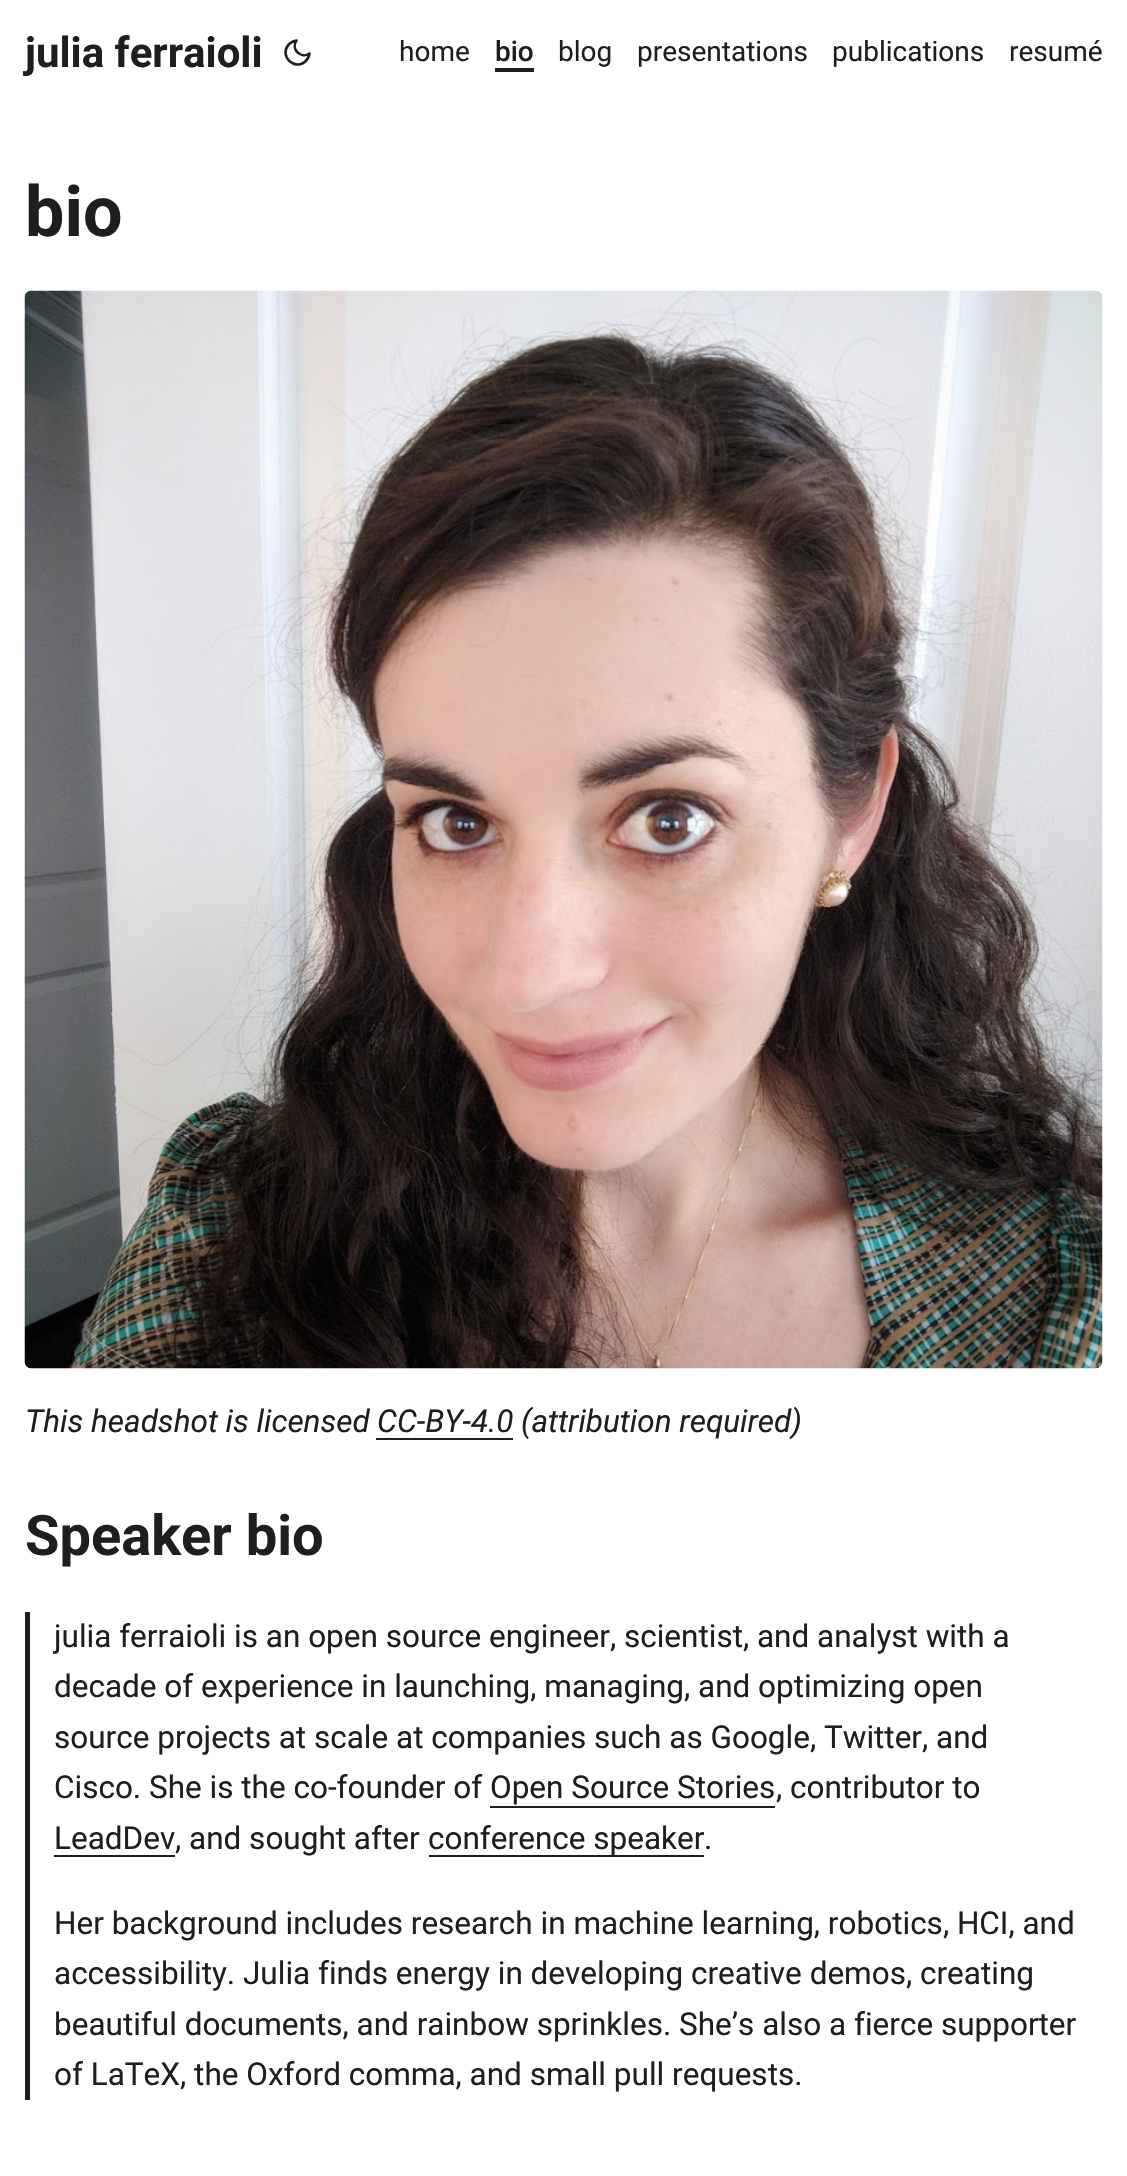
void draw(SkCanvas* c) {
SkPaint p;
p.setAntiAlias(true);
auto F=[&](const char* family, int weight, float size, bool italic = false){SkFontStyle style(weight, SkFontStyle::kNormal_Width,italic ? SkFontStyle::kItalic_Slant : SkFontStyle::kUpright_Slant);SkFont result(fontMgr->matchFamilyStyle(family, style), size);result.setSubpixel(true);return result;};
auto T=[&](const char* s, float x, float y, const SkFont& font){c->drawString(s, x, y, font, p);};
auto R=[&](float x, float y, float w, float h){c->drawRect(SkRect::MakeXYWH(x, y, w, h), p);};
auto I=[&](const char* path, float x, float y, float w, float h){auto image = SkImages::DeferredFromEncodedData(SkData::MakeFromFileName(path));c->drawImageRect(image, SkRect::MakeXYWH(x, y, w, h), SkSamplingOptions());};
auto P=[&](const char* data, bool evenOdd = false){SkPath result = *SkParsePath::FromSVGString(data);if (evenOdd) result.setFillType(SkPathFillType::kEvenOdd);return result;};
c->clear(0xffffffff);
auto f1 = F("Roboto",700,42);
p.setColor(0xff1e1e1e);
T("julia ferraioli",25,67,f1);
p.setStroke(true);
p.setStrokeWidth(2.6);
p.setStrokeCap(SkPaint::kRound_Cap);
p.setStrokeJoin(SkPaint::kRound_Join);
c->drawPath(P("M309.5 53.5c-1 6.5-6 11-12.5 11c-6-.5-11-5.5-11.5-11.5c0-6.5 4.5-11.5 11-12.5c-6 8.5 4.5 19 13 13z"),p);
auto f2 = F("Roboto",400,28);
p.setStroke(false);
T("home",399,61,f2);
auto f3 = F("Roboto",500,28);
T("bio",495,61,f3);
R(495,68,39,4);
T("blog",558,61,f2);
T("presentations",637,61,f2);
T("publications",832,61,f2);
T("resumé",1009,61,f2);
auto f4 = F("Roboto",700,70);
T("bio",25,236,f4);
I("1.png",24,290,1079,1079);
auto f5 = F("Roboto",400,31.5,true);
T("This headshot is licensed",25,1432,f5);
T("CC-BY-4.0",377,1432,f5);
c->drawPath(P("M376 1404v36h137v-36v34h-137z"),p);
T("(attribution required)",521,1432,f5);
auto f6 = F("Roboto",700,56);
T("Speaker bio",25,1555,f6);
R(25,1612,5,488);
auto f7 = F("Roboto",400,31.5);
T("julia ferraioli is an open source engineer, scientist, and analyst with a",54,1647,f7);
T("decade of experience in launching, managing, and optimizing open",54,1697,f7);
T("source projects at scale at companies such as Google, Twitter, and",54,1748,f7);
T("Cisco. She is the co-founder of",54,1798,f7);
T("Open Source Stories",490,1798,f7);
R(490,1806,285,2);
T(", contributor to",776,1798,f7);
T("LeadDev",54,1849,f7);
c->drawPath(P("M54 1820v37h121v-2h-121z"),p);
T(", and sought after",175,1849,f7);
c->drawPath(P("M429 1855v2h275v-37v35z"),p);
T("conference speaker",428,1849,f7);
T(".",704,1849,f7);
T("Her background includes research in machine learning, robotics, HCI, and",54,1934,f7);
T("accessibility. Julia finds energy in developing creative demos, creating",54,1984,f7);
T("beautiful documents, and rainbow sprinkles. She’s also a fierce supporter",54,2035,f7);
T("of LaTeX, the Oxford comma, and small pull requests.",54,2085,f7);
}
